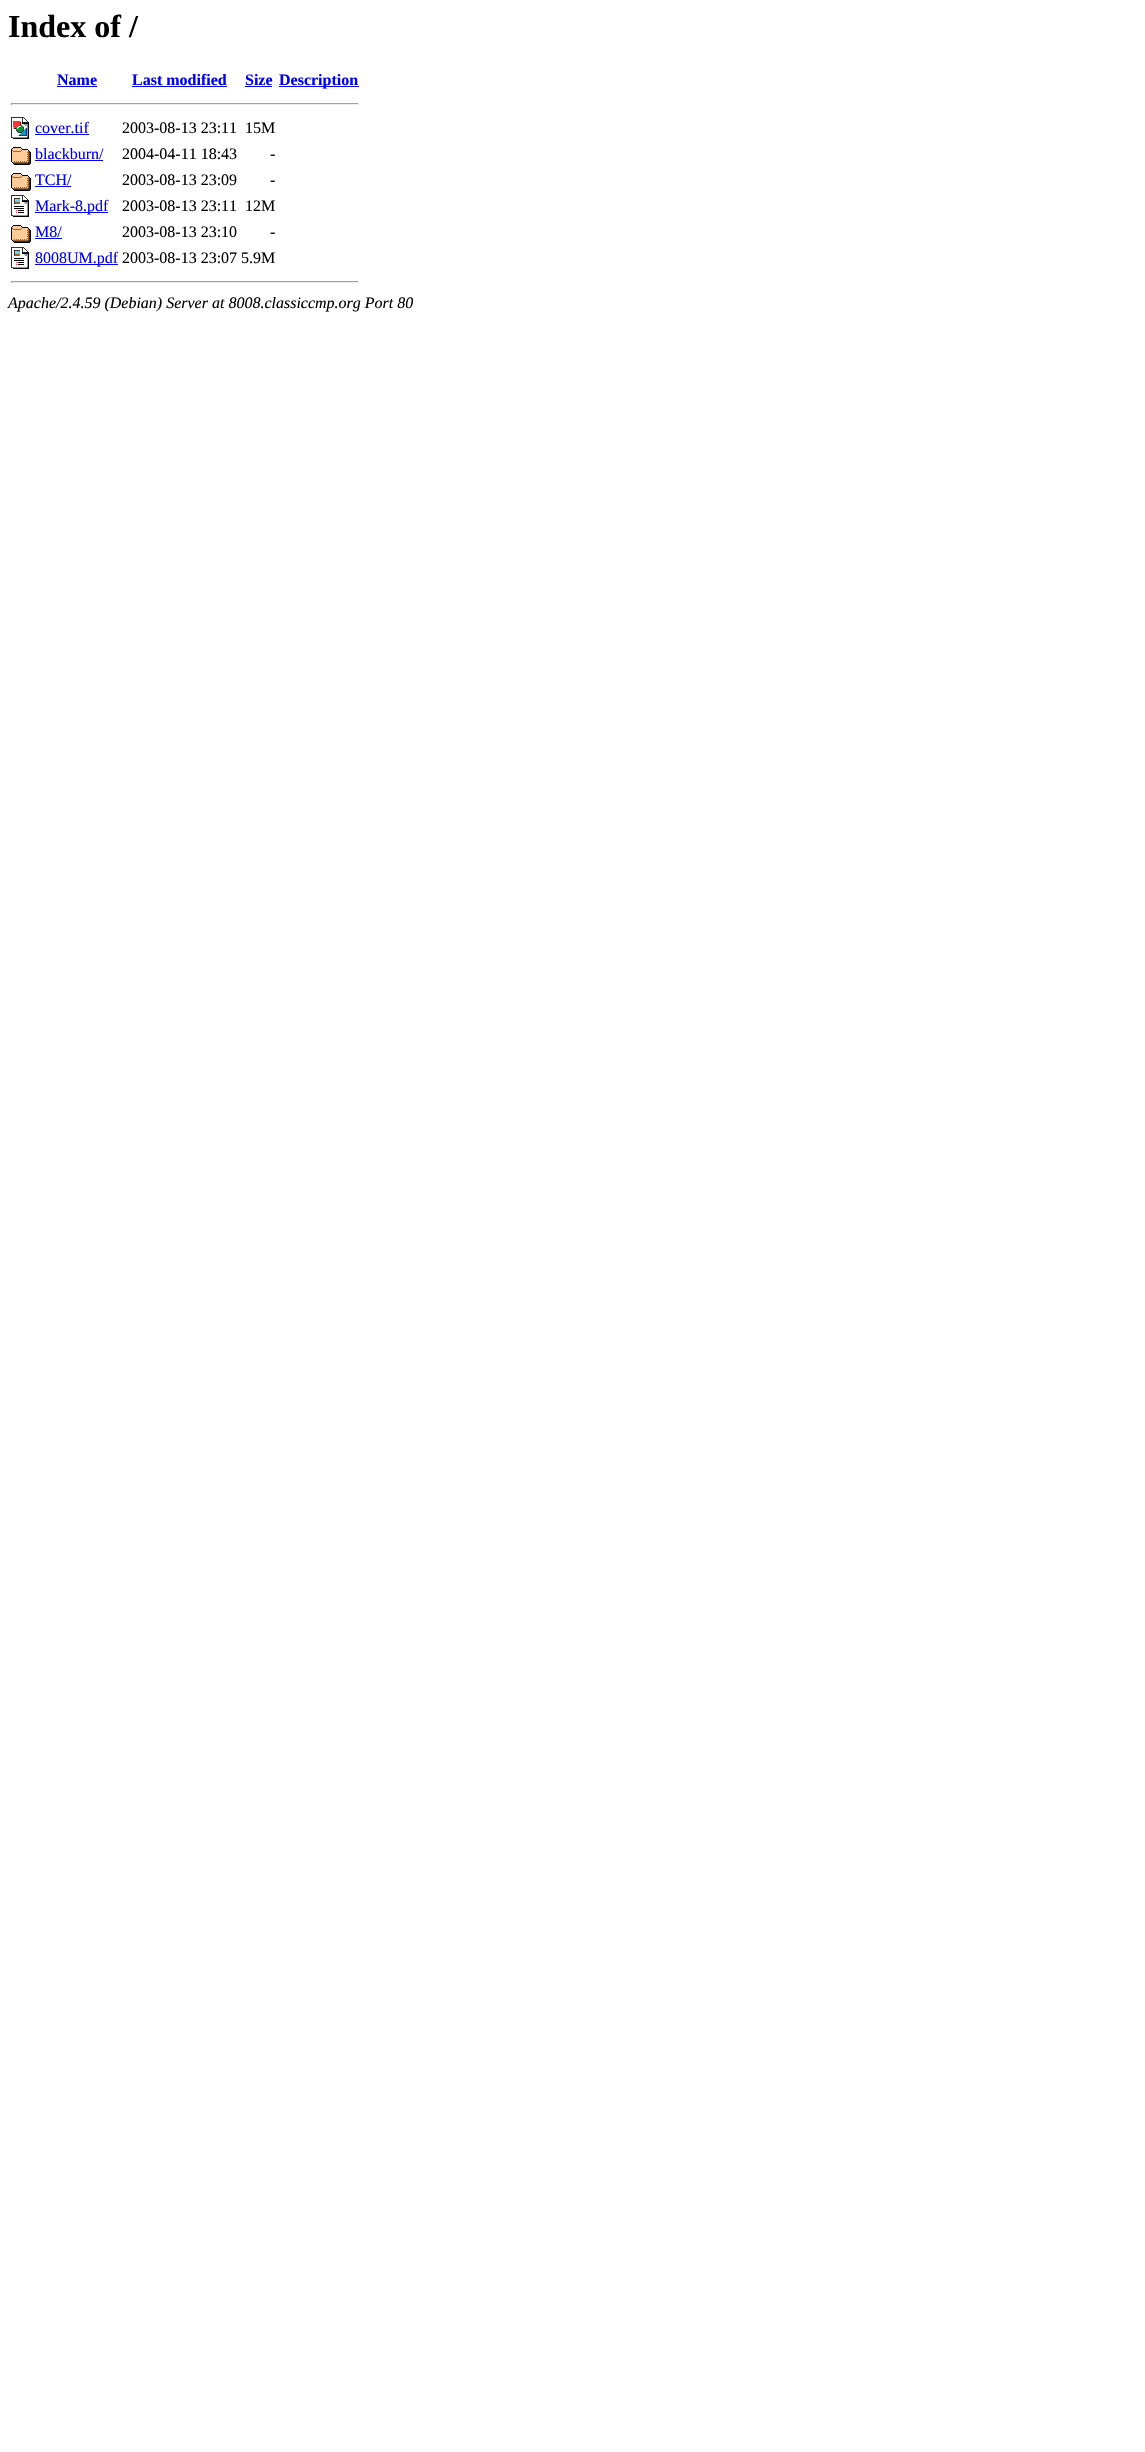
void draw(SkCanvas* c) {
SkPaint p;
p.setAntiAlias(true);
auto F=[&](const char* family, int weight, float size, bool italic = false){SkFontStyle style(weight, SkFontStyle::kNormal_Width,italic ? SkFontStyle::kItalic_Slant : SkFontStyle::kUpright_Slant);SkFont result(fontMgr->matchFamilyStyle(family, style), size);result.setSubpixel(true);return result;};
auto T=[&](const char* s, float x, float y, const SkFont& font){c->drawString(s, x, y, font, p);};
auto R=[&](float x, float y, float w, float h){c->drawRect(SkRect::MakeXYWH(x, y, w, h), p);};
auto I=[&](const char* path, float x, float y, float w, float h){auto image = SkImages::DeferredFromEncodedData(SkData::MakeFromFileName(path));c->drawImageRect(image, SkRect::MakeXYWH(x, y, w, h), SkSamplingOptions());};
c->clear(0xffffffff);
auto f1 = F("Liberation Serif",700,32);
p.setColor(0xff000000);
T("Index of /",8,37,f1);
auto f2 = F("Liberation Serif",700,16);
p.setColor(0xff0000ee);
T("Name",57,85,f2);
R(57,86,40,1);
T("Last modified",132,85,f2);
R(132,86,95,1);
T("Size",245,85,f2);
R(245,86,27,1);
R(279,86,80,1);
T("Description",279,85,f2);
p.setColor(0xff9f9f9f);
R(11,103,348,1);
p.setColor(0xffeeeeee);
R(358,103,1,2);
R(11,104,348,1);
p.setColor(0xff9f9f9f);
R(11,103,1,2);
I("1.png",11,117,18,22);
auto f3 = F("Liberation Serif",400,16);
p.setColor(0xff0000ee);
T("cover.tif",35,133,f3);
R(35,134,54,1);
p.setColor(0xff000000);
T("2003-08-13 23:11",122,133,f3);
T("15M",245,133,f3);
I("2.png",11,147,20,18);
p.setColor(0xff0000ee);
T("blackburn/",35,159,f3);
R(35,160,68,1);
p.setColor(0xff000000);
T("2004-04-11 18:43",122,159,f3);
T("-",270,159,f3);
I("2.png",11,173,20,18);
p.setColor(0xff0000ee);
T("TCH/",35,185,f3);
R(35,186,36,1);
p.setColor(0xff000000);
T("2003-08-13 23:09",122,185,f3);
T("-",270,185,f3);
I("3.png",11,195,18,22);
p.setColor(0xff0000ee);
R(35,212,73,1);
T("Mark-8.pdf",35,211,f3);
p.setColor(0xff000000);
T("2003-08-13 23:11",122,211,f3);
T("12M",245,211,f3);
I("2.png",11,225,20,18);
p.setColor(0xff0000ee);
T("M8/",35,237,f3);
R(35,238,27,1);
p.setColor(0xff000000);
T("2003-08-13 23:10",122,237,f3);
T("-",270,237,f3);
I("3.png",11,247,18,22);
p.setColor(0xff0000ee);
R(35,264,83,1);
T("8008UM.pdf",35,263,f3);
p.setColor(0xff000000);
T("2003-08-13 23:07 5.9M",122,263,f3);
p.setColor(0xff9f9f9f);
R(11,281,348,1);
p.setColor(0xffeeeeee);
R(358,281,1,2);
R(11,282,348,1);
p.setColor(0xff9f9f9f);
R(11,281,1,2);
auto f4 = F("Liberation Serif",400,16,true);
p.setColor(0xff000000);
T("Apache/2.4.59 (Debian) Server at 8008.classiccmp.org Port 80",8,308,f4);
}
